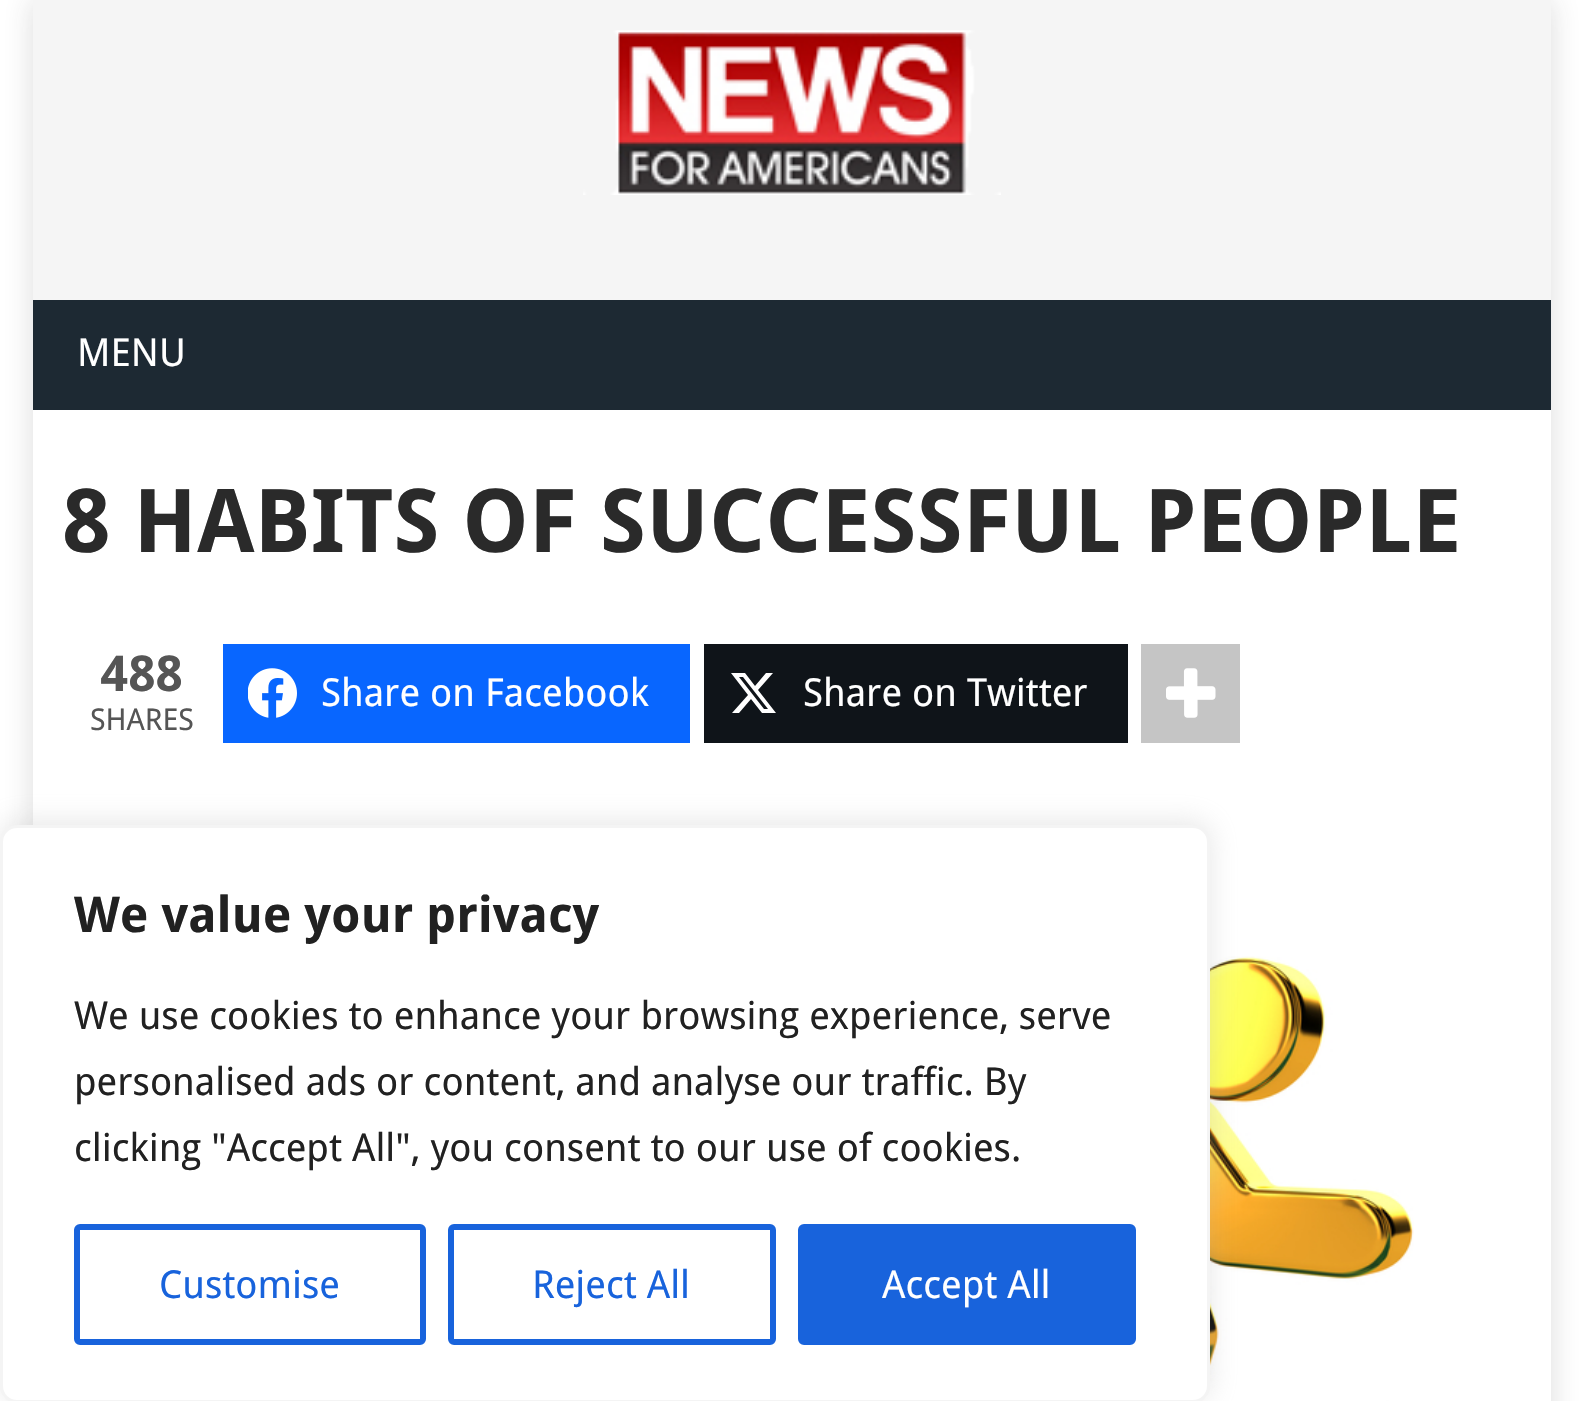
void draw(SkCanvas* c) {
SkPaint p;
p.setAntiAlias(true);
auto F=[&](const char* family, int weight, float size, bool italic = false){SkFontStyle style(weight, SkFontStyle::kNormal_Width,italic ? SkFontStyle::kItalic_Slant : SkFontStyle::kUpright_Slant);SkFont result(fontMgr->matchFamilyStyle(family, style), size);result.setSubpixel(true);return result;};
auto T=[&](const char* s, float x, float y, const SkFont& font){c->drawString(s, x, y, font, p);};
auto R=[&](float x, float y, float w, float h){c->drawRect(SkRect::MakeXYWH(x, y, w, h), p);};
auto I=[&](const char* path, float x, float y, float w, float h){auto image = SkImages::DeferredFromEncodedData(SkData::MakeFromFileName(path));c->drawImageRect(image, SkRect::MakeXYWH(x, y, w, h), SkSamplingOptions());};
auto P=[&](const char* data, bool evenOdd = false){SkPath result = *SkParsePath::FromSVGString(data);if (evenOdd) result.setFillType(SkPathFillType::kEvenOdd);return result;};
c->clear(0xffffffff);
c->save();
c->clipPath(P("M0 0h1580v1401h-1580zm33 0h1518v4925h-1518z",true),true);
p.setColor(0x2b323232);
p.setMaskFilter(SkMaskFilter::MakeBlur(kNormal_SkBlurStyle, 14));
c->drawRect(SkRect::MakeXYWH(33,0,1518,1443),p);
p.setMaskFilter(nullptr);
c->restore();
p.setColor(0xfff5f5f5);
R(33,0,1518,300);
I("1.png",583,30,418,165);
p.setColor(0xff1d2933);
R(33,300,1518,110);
auto f1 = F("Droid Sans",400,38.5);
p.setColor(0xffffffff);
T("MENU",77,366,f1);
auto f2 = F("Droid Sans",700,88);
p.setColor(0xff2a2a2a);
T("8 HABITS OF SUCCESSFUL PEOPLE",62,552,f2);
auto f3 = F("Droid Sans",700,49.5);
p.setColor(0xff555555);
T("488",101,691,f3);
auto f4 = F("Droid Sans",400,30);
T("SHARES",90,730,f4);
p.setColor(0xff0866ff);
R(223,644,467,99);
I("2.png",248,668,49,50);
p.setColor(0xffffffff);
T("Share on Facebook",321,706,f1);
p.setColor(0xff0f1419);
R(704,644,424,99);
p.setColor(0xffffffff);
c->drawPath(P("M766 673h7l-15 17l18 23h-14l-11-14l-12 14h-7l16-18l-17-22h14l10 13zm-2 36h4l-25-32h-4z"),p);
T("Share on Twitter",803,706,f1);
p.setColor(0xffc5c5c5);
R(1141,644,99,99);
I("3.png",1166,668,50,50);
I("4.png",1201,956,213,445);
p.setColor(0x4dacabab);
p.setMaskFilter(SkMaskFilter::MakeBlur(kNormal_SkBlurStyle, 14));
c->drawRoundRect(SkRect::MakeXYWH(0,822,1210,578),17,17,p);
p.setMaskFilter(nullptr);
p.setColor(0xffffffff);
c->drawRoundRect(SkRect::MakeXYWH(1.5,826.5,1207,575),15.5,15.5,p);
p.setStroke(true);
p.setStrokeWidth(3);
p.setColor(0xfff4f4f4);
c->drawRoundRect(SkRect::MakeXYWH(1.5,826.5,1207,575),15.5,15.5,p);
p.setStroke(false);
p.setColor(0xff212121);
T("We value your privacy",74,932,f3);
T("We use cookies to enhance your browsing experience, serve",74,1029,f1);
T("personalised ads or content, and analyse our traffic. By",74,1095,f1);
T("clicking \"Accept All\", you consent to our use of cookies.",74,1161,f1);
p.setStroke(true);
p.setStrokeWidth(6);
p.setColor(0xff1863dc);
c->drawRoundRect(SkRect::MakeXYWH(77,1227,346,115),3,3,p);
p.setStroke(false);
T("Customise",159,1298,f1);
p.setStroke(true);
c->drawRoundRect(SkRect::MakeXYWH(451,1227,322,115),3,3,p);
p.setStroke(false);
T("Reject All",532,1298,f1);
c->drawRoundRect(SkRect::MakeXYWH(801,1227,332,115),3,3,p);
p.setStroke(true);
c->drawRoundRect(SkRect::MakeXYWH(801,1227,332,115),3,3,p);
p.setStroke(false);
p.setColor(0xffffffff);
T("Accept All",882,1298,f1);
}
